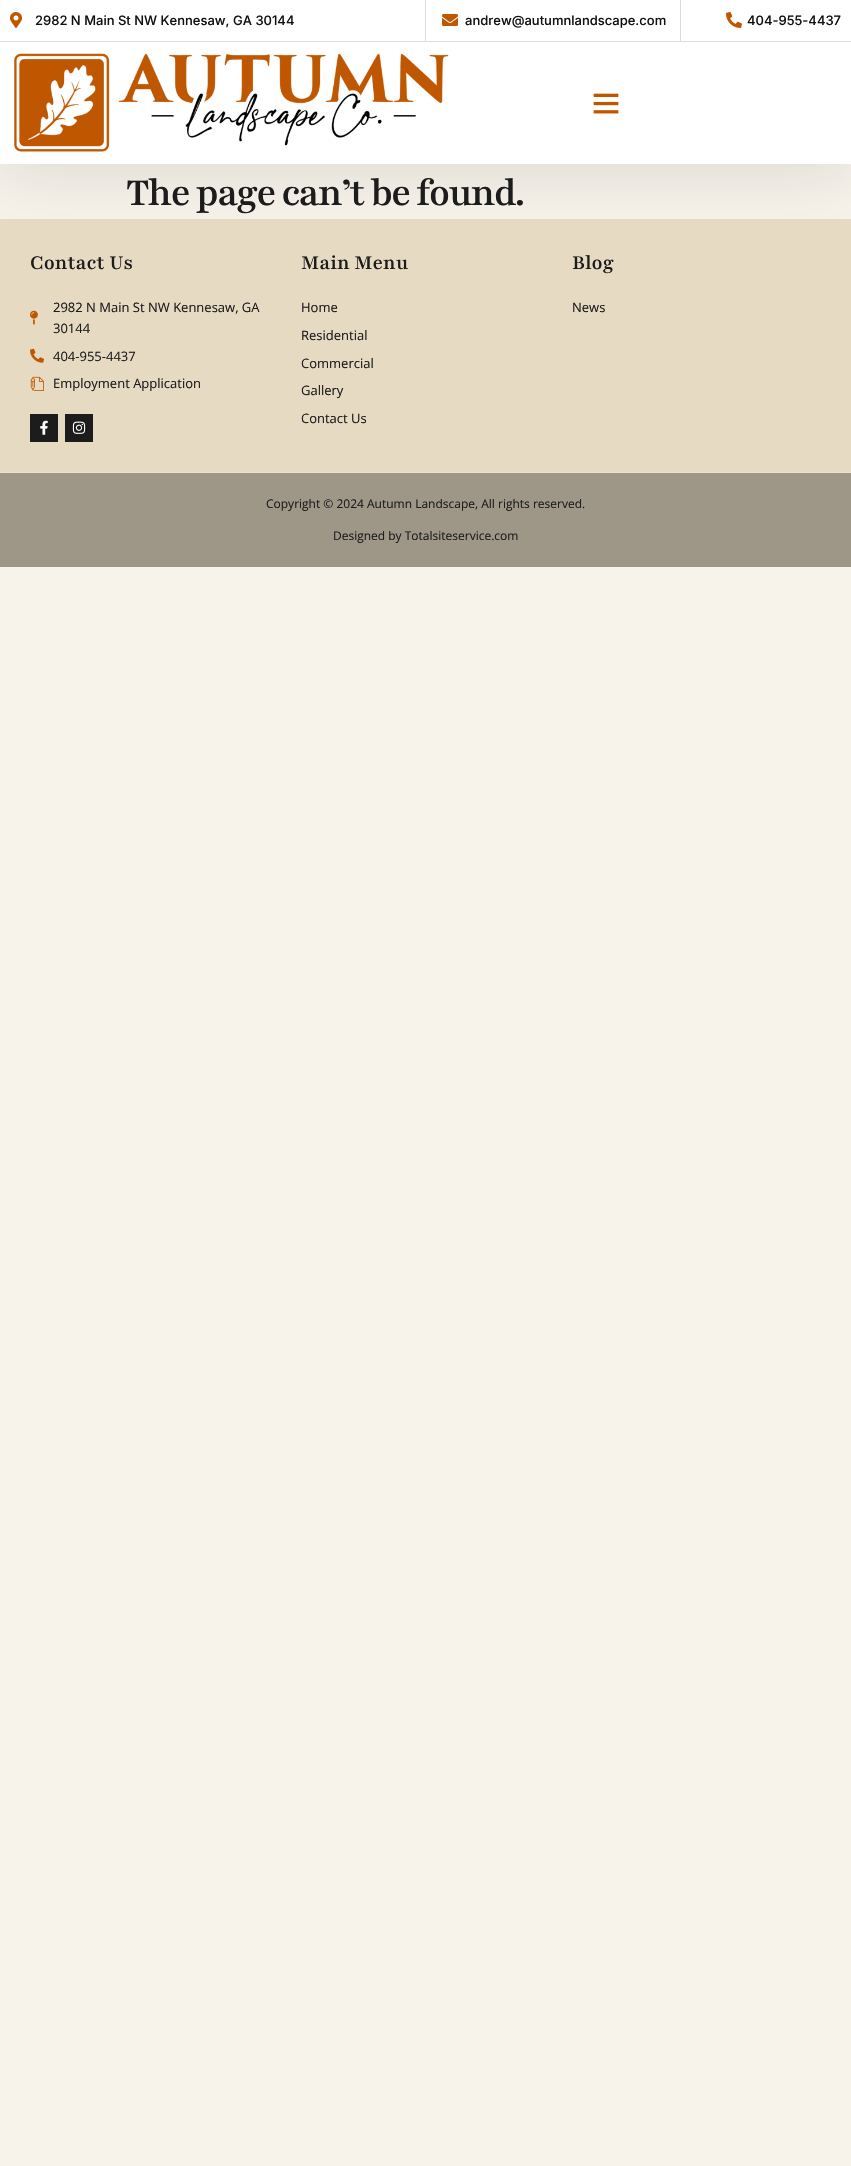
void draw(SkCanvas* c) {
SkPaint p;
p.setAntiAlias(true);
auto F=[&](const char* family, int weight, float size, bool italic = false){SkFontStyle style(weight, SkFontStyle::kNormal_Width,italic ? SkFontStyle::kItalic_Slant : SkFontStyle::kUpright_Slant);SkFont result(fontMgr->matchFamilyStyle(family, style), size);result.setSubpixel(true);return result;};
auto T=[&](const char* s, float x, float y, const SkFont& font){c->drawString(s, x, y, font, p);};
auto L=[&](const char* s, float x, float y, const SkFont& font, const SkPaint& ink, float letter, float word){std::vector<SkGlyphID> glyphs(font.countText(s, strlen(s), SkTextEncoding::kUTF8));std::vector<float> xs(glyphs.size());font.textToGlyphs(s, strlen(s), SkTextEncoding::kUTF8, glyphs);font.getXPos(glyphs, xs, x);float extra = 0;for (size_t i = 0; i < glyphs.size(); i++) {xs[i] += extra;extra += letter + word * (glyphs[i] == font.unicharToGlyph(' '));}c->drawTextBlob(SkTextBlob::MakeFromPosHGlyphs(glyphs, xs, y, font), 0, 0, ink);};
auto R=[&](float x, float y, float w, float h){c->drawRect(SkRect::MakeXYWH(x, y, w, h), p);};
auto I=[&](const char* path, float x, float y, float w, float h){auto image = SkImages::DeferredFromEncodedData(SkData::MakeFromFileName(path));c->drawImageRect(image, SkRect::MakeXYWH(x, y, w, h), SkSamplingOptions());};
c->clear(0xfff7f3eb);
p.setColor(0x1a000000);
p.setMaskFilter(SkMaskFilter::MakeBlur(kNormal_SkBlurStyle, 30));
c->drawRect(SkRect::MakeXYWH(0,52,851,122),p);
p.setMaskFilter(nullptr);
p.setColor(0xffffffff);
R(0,42,851,122);
I("1.png",14,53,435,99);
I("2.png",593,93,26,21);
R(0,0,851,41);
p.setColor(0xffdcdcde);
R(0,41,851,1);
R(425,0,1,41);
I("3.png",10,12,12,16);
auto f1 = F("Inter",500,13);
p.setColor(0xff111111);
T("2982 N Main St NW Kennesaw, GA 30144",35,25,f1);
p.setColor(0xffdcdcde);
R(680,0,1,41);
I("4.png",442,14,16,12);
p.setColor(0xff111111);
T("andrew@autumnlandscape.com",465,25,f1);
I("5.png",726,12,16,16);
T("404-955-4437",747,25,f1);
auto f2 = F("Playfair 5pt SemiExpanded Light",600,42.75);
p.setColor(0xff1c1c1c);
L("The page can’t be found.",126,205,f2,p,-2,0);
p.setColor(0xffe6dac3);
R(0,219,851,253);
p.setColor(0xffeae0cd);
R(0,472,851,1);
auto f3 = F("Playfair 5pt SemiExpanded Light",600,22);
p.setColor(0xff1c1c1c);
T("Contact Us",30,269,f3);
I("6.png",30,310,8,15);
auto f4 = F("Open Sans",400,13);
T("2982 N Main St NW Kennesaw, GA",53,312,f4);
T("30144",53,333,f4);
I("7.png",30,348,14,15);
T("404-955-4437",53,361,f4);
I("8.png",30,376,14,15);
T("Employment Application",53,388,f4);
R(30,414,28,28);
I("9.png",40,420,8,15);
R(65,414,28,28);
I("10.png",72,421,14,13);
T("Main Menu",301,269,f3);
T("Home",301,312,f4);
T("Residential",301,340,f4);
T("Commercial",301,368,f4);
T("Gallery",301,395,f4);
T("Contact Us",301,423,f4);
T("Blog",572,269,f3);
T("News",572,312,f4);
p.setColor(0xff9e9687);
R(0,473,851,94);
auto f5 = F("Open Sans",400,12);
p.setColor(0xff1c1c1c);
T("Copyright © 2024 Autumn Landscape, All rights reserved.",266,508,f5);
T("Designed by Totalsiteservice.com",333,540,f5);
}
